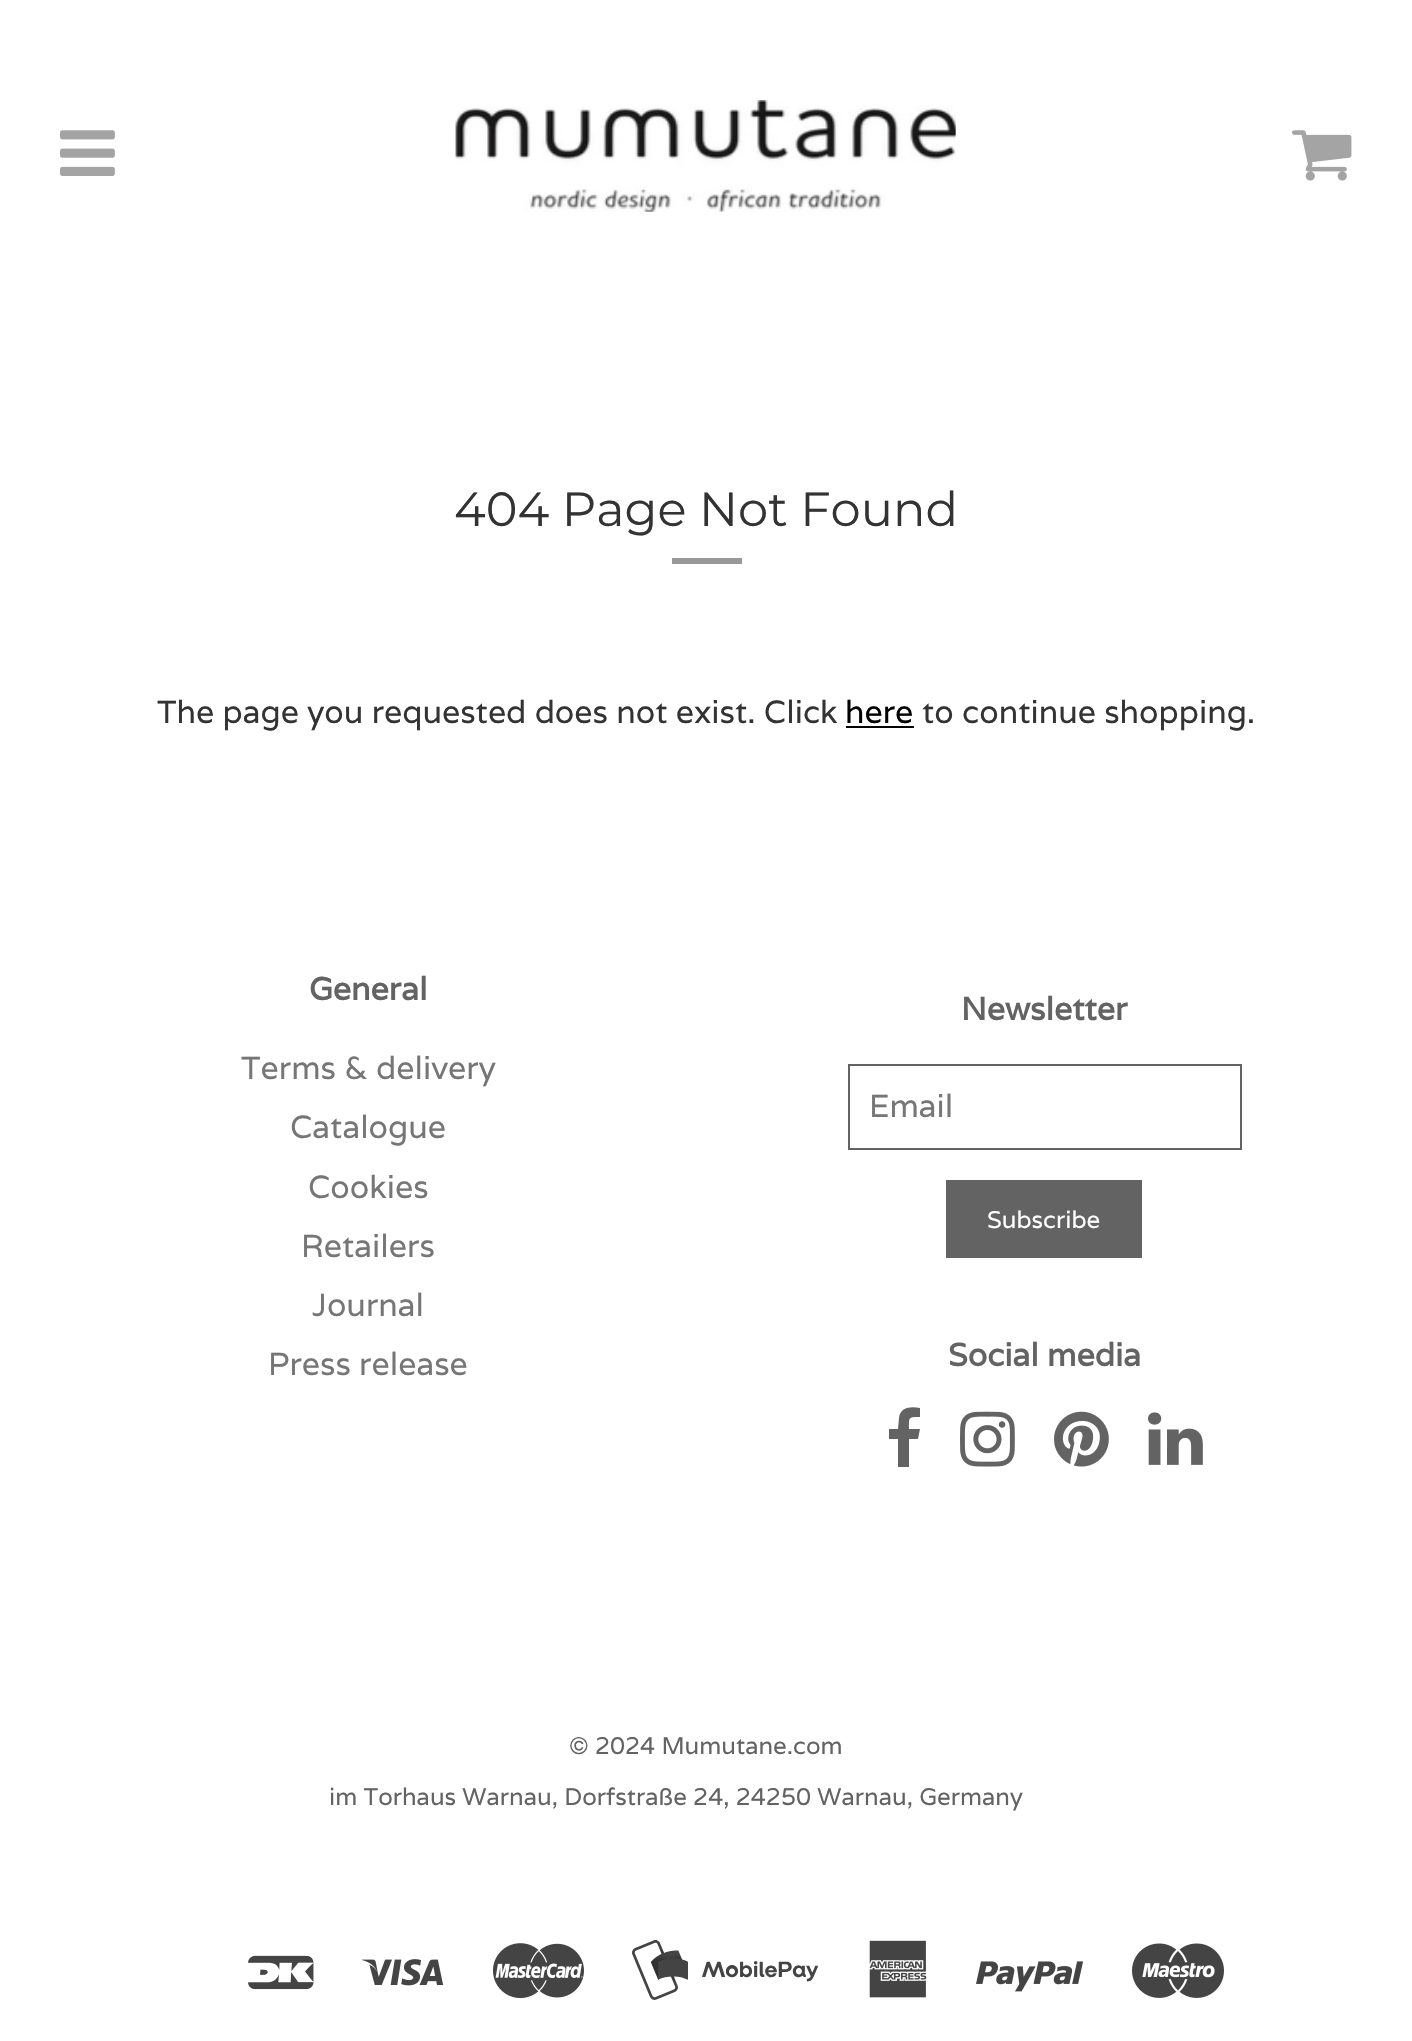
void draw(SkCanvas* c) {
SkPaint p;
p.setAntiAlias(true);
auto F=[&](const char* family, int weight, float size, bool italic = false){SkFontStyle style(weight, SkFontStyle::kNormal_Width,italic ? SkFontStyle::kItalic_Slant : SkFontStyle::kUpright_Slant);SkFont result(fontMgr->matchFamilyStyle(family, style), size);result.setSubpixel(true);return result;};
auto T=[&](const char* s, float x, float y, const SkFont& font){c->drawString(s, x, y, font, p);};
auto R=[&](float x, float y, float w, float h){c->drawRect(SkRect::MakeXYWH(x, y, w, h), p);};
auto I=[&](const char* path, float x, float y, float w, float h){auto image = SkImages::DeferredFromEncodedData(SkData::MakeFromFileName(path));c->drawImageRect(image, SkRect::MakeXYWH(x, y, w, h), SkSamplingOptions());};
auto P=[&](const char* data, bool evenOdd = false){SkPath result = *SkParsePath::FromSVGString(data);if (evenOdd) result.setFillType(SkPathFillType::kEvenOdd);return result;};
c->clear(0xffffffff);
I("1.png",60,130,55,46);
I("2.png",455,100,501,112);
I("3.png",1292,130,60,51);
auto f1 = F("Montserrat",100,48);
p.setColor(0xff333333);
T("404 Page Not Found",454,526,f1);
p.setColor(0xff999999);
R(672,558,70,6);
auto f2 = F("Varela",400,32);
p.setColor(0xff333333);
T("The page you requested does not exist. Click",157,723,f2);
p.setColor(0xff000000);
T("here",845,723,f2);
R(846,726,68,2);
p.setColor(0xff333333);
T("to continue shopping.",922,723,f2);
auto f3 = F("Varela",700,32);
p.setColor(0xff636363);
T("General",309,1000,f3);
p.setColor(0xff767676);
T("Terms & delivery",241,1079,f2);
T("Catalogue",290,1138,f2);
T("Cookies",308,1198,f2);
T("Retailers",301,1257,f2);
T("Journal",312,1316,f2);
T("Press release",268,1375,f2);
p.setColor(0xff636363);
T("Newsletter",961,1020,f3);
p.setStroke(true);
p.setStrokeWidth(2);
c->drawRect(SkRect::MakeXYWH(849,1065,392,84),p);
p.setStroke(false);
p.setColor(0xff767676);
T("Email",869,1117,f2);
p.setColor(0xff636363);
R(946,1180,196,78);
auto f4 = F("Varela",400,24);
p.setColor(0xffffffff);
T("Subscribe",987,1228,f4);
p.setColor(0xff636363);
T("Social media",948,1366,f3);
c->drawPath(P("M920 1408v9c-12 0-11 0-11 12h11l-2 10h-9v28h-11v-28h-9v-10h9l1-11c1-11 12-12 21-10z"),p);
I("4.png",960,1411,55,56);
I("5.png",1054,1411,55,56);
I("6.png",1148,1412,55,53);
T("© 2024 Mumutane.com",569,1754,f4);
T("im Torhaus Warnau, Dorfstraße 24, 24250 Warnau, Germany",329,1805,f4);
I("7.png",248,1955,66,35);
I("8.png",362,1959,82,27);
I("9.png",492,1943,92,56);
I("10.png",632,1940,186,60);
I("11.png",869,1940,58,58);
I("12.png",976,1961,108,31);
I("13.png",1132,1943,92,55);
}
